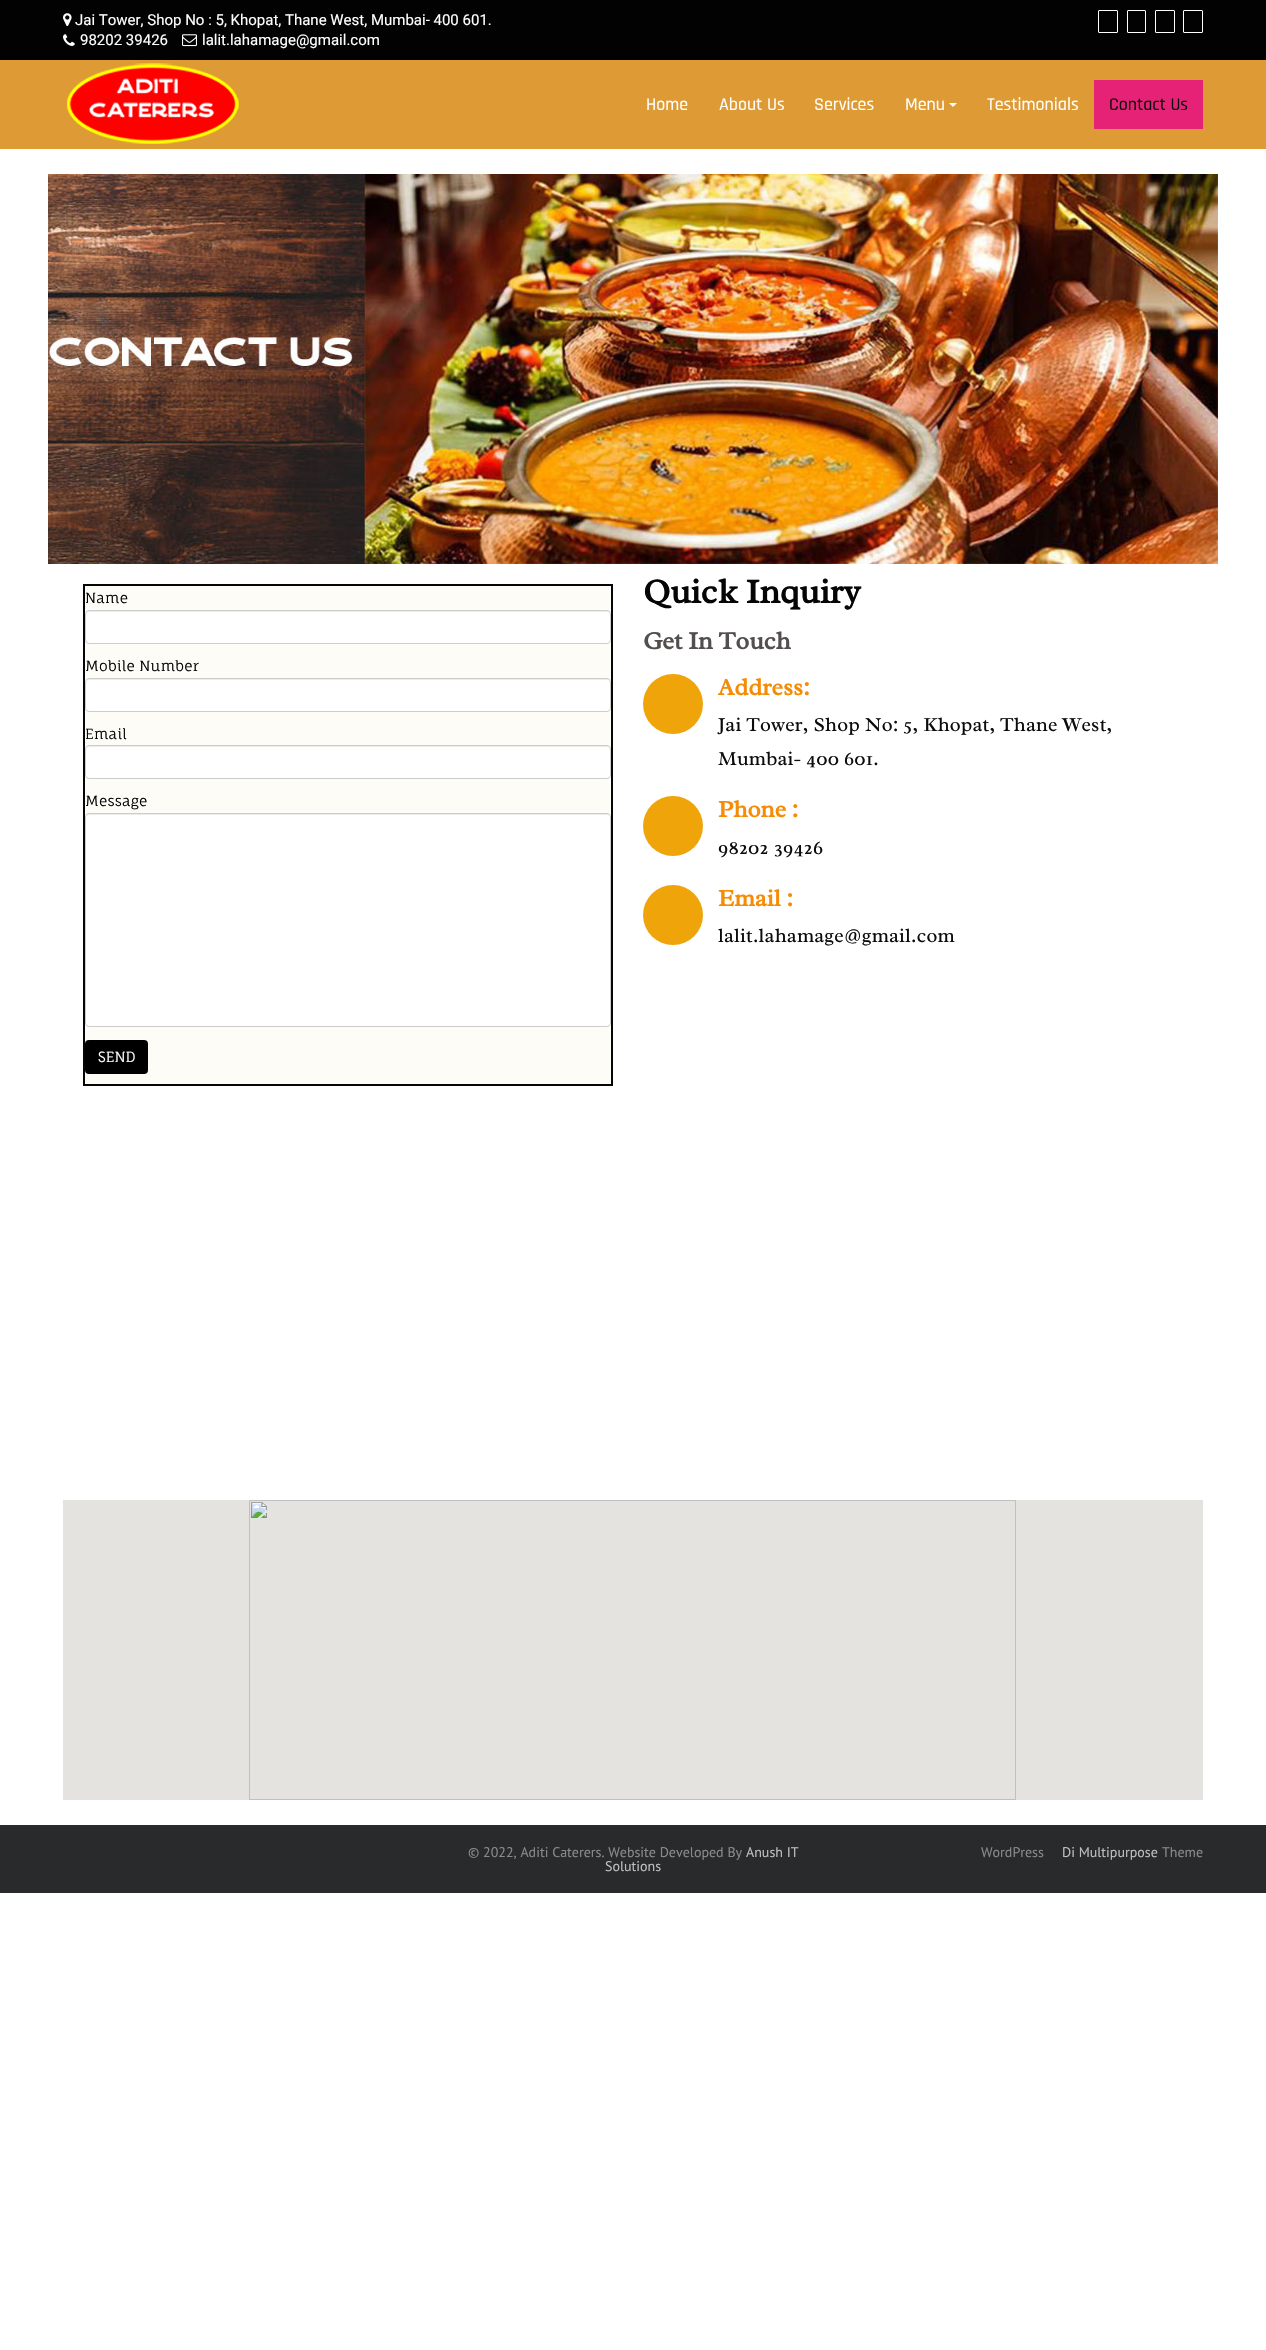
void draw(SkCanvas* c) {
SkPaint p;
p.setAntiAlias(true);
auto F=[&](const char* family, int weight, float size, bool italic = false){SkFontStyle style(weight, SkFontStyle::kNormal_Width,italic ? SkFontStyle::kItalic_Slant : SkFontStyle::kUpright_Slant);SkFont result(fontMgr->matchFamilyStyle(family, style), size);result.setSubpixel(true);return result;};
auto T=[&](const char* s, float x, float y, const SkFont& font){c->drawString(s, x, y, font, p);};
auto L=[&](const char* s, float x, float y, const SkFont& font, const SkPaint& ink, float letter, float word){std::vector<SkGlyphID> glyphs(font.countText(s, strlen(s), SkTextEncoding::kUTF8));std::vector<float> xs(glyphs.size());font.textToGlyphs(s, strlen(s), SkTextEncoding::kUTF8, glyphs);font.getXPos(glyphs, xs, x);float extra = 0;for (size_t i = 0; i < glyphs.size(); i++) {xs[i] += extra;extra += letter + word * (glyphs[i] == font.unicharToGlyph(' '));}c->drawTextBlob(SkTextBlob::MakeFromPosHGlyphs(glyphs, xs, y, font), 0, 0, ink);};
auto R=[&](float x, float y, float w, float h){c->drawRect(SkRect::MakeXYWH(x, y, w, h), p);};
auto Q=[&](float x, float y, float w, float h, float radius){c->drawRoundRect(SkRect::MakeXYWH(x, y, w, h), radius, radius, p);};
auto I=[&](const char* path, float x, float y, float w, float h){auto image = SkImages::DeferredFromEncodedData(SkData::MakeFromFileName(path));c->drawImageRect(image, SkRect::MakeXYWH(x, y, w, h), SkSamplingOptions());};
auto P=[&](const char* data, bool evenOdd = false){SkPath result = *SkParsePath::FromSVGString(data);if (evenOdd) result.setFillType(SkPathFillType::kEvenOdd);return result;};
c->clear(0xffffffff);
p.setColor(0xff020202);
R(0,0,1266,60);
I("1.png",63,13,9,13);
auto f1 = F("Roboto",400,15);
p.setColor(0xffffffff);
T("Jai Tower, Shop No : 5, Khopat, Thane West, Mumbai- 400 601.",75,25,f1);
I("2.png",63,34,12,12);
T("98202 39426",80,45,f1);
I("3.png",182,34,15,13);
T("lalit.lahamage@gmail.com",202,45,f1);
p.setStroke(true);
p.setStrokeWidth(1);
c->drawRoundRect(SkRect::MakeXYWH(1098.5,10.5,19,22),.5,.5,p);
c->drawRoundRect(SkRect::MakeXYWH(1127.5,10.5,18,22),.5,.5,p);
c->drawRoundRect(SkRect::MakeXYWH(1155.5,10.5,19,22),.5,.5,p);
c->drawRoundRect(SkRect::MakeXYWH(1183.5,10.5,19,22),.5,.5,p);
p.setStroke(false);
p.setColor(0xffdd9a35);
R(0,60,1266,89);
I("4.png",67,63,172,81);
auto f2 = F("Rajdhani",500,18);
p.setColor(0xffffffff);
T("Home",646,110,f2);
T("About Us",719,110,f2);
T("Services",814,110,f2);
T("Menu",905,110,f2);
c->drawPath(P("M949 103h8l-4 4z"),p);
T("Testimonials",987,110,f2);
p.setColor(0xffe62277);
R(1094,80,109,49);
p.setColor(0xff0c0c0c);
T("Contact Us",1109,110,f2);
I("5.png",48,174,1170,390);
p.setColor(0xfffdfcf6);
c->drawRect(SkRect::MakeXYWH(84,585,528,500),p);
p.setStroke(true);
p.setStrokeWidth(2);
p.setColor(0xff050505);
c->drawRect(SkRect::MakeXYWH(84,585,528,500),p);
auto f3 = F("Fauna One",400,14);
p.setStroke(false);
L("Name",85,603,f3,p,.2,0);
p.setColor(0xffffffff);
Q(85,610,526,34,4);
p.setColor(0xffececec);
c->drawPath(P("M89 612h518c2 0 3 1 3 3v-2l-2-2h-519c-2 0-3 2-3 4c0-2 1-3 3-3z"),p);
p.setStroke(true);
p.setStrokeWidth(1);
p.setColor(0xffcccccc);
c->drawRoundRect(SkRect::MakeXYWH(85.5,610.5,525,33),3.5,3.5,p);
p.setStroke(false);
p.setColor(0xff050505);
L("Mobile Number",85,671,f3,p,.2,0);
p.setColor(0xffffffff);
Q(85,678,526,34,4);
p.setColor(0xffececec);
c->drawPath(P("M89 680h518c2 0 3 1 3 3v-2l-2-2h-519c-2 0-3 2-3 4c0-2 1-3 3-3z"),p);
p.setStroke(true);
p.setColor(0xffcccccc);
c->drawRoundRect(SkRect::MakeXYWH(85.5,678.5,525,33),3.5,3.5,p);
p.setStroke(false);
p.setColor(0xff050505);
L("Email",85,739,f3,p,.2,0);
p.setColor(0xffffffff);
Q(85,745,526,34,4);
p.setColor(0xffececec);
c->drawPath(P("M89 747h518c2 0 3 1 3 3v-2l-2-2h-519c-2 0-3 2-3 4c0-2 1-3 3-3z"),p);
p.setStroke(true);
p.setColor(0xffcccccc);
c->drawRoundRect(SkRect::MakeXYWH(85.5,745.5,525,33),3.5,3.5,p);
p.setStroke(false);
p.setColor(0xff050505);
L("Message",85,806,f3,p,.2,0);
p.setColor(0xffffffff);
Q(85,813,526,214,4);
p.setColor(0xffececec);
c->drawPath(P("M89 815h518c2 0 3 1 3 3v-2l-2-2h-519c-2 0-3 2-3 4c0-2 1-3 3-3z"),p);
p.setStroke(true);
p.setColor(0xffcccccc);
c->drawRoundRect(SkRect::MakeXYWH(85.5,813.5,525,213),3.5,3.5,p);
p.setStroke(false);
p.setColor(0xff000000);
Q(85,1040,63,34,4);
p.setColor(0xffffffff);
T("SEND",98,1062,f3);
auto f4 = F("Radley",700,35);
p.setColor(0xff050505);
T("Quick Inquiry",643,603,f4);
auto f5 = F("Radley",700,25);
p.setColor(0xff544f4f);
T("Get In Touch",643,649,f5);
p.setColor(0xffefa509);
c->drawCircle(673,704,30,p);
auto f6 = F("Radley",700,24);
p.setColor(0xfff68c06);
T("Address:",718,695,f6);
auto f7 = F("Radley",400,20);
p.setColor(0xff0c0c0c);
L("Jai Tower, Shop No: 5, Khopat, Thane West,",718,731,f7,p,.2,0);
L("Mumbai- 400 601.",718,765,f7,p,.2,0);
p.setColor(0xffefa509);
c->drawCircle(673,826,30,p);
p.setColor(0xfff68c06);
T("Phone :",718,817,f6);
p.setColor(0xff0c0c0c);
L("98202 39426",718,854,f7,p,.2,0);
p.setColor(0xffefa509);
c->drawCircle(673,915,30,p);
p.setColor(0xfff68c06);
T("Email :",718,906,f6);
p.setColor(0xff0c0c0c);
L("lalit.lahamage@gmail.com",718,942,f7,p,.2,0);
I("6.png",63,1500,1140,300);
p.setColor(0xff282a2b);
R(0,1825,1266,68);
auto f8 = F("PT Sans",400,14);
p.setColor(0xff8c8989);
T("© 2022, Aditi Caterers. Website Developed By",468,1857,f8);
p.setColor(0xffbfbfbf);
T("Anush IT",746,1857,f8);
T("Solutions",605,1871,f8);
p.setColor(0xff8c8989);
T("WordPress",981,1857,f8);
p.setColor(0xffbfbfbf);
T("Di Multipurpose",1062,1857,f8);
p.setColor(0xff8c8989);
T("Theme",1162,1857,f8);
}
